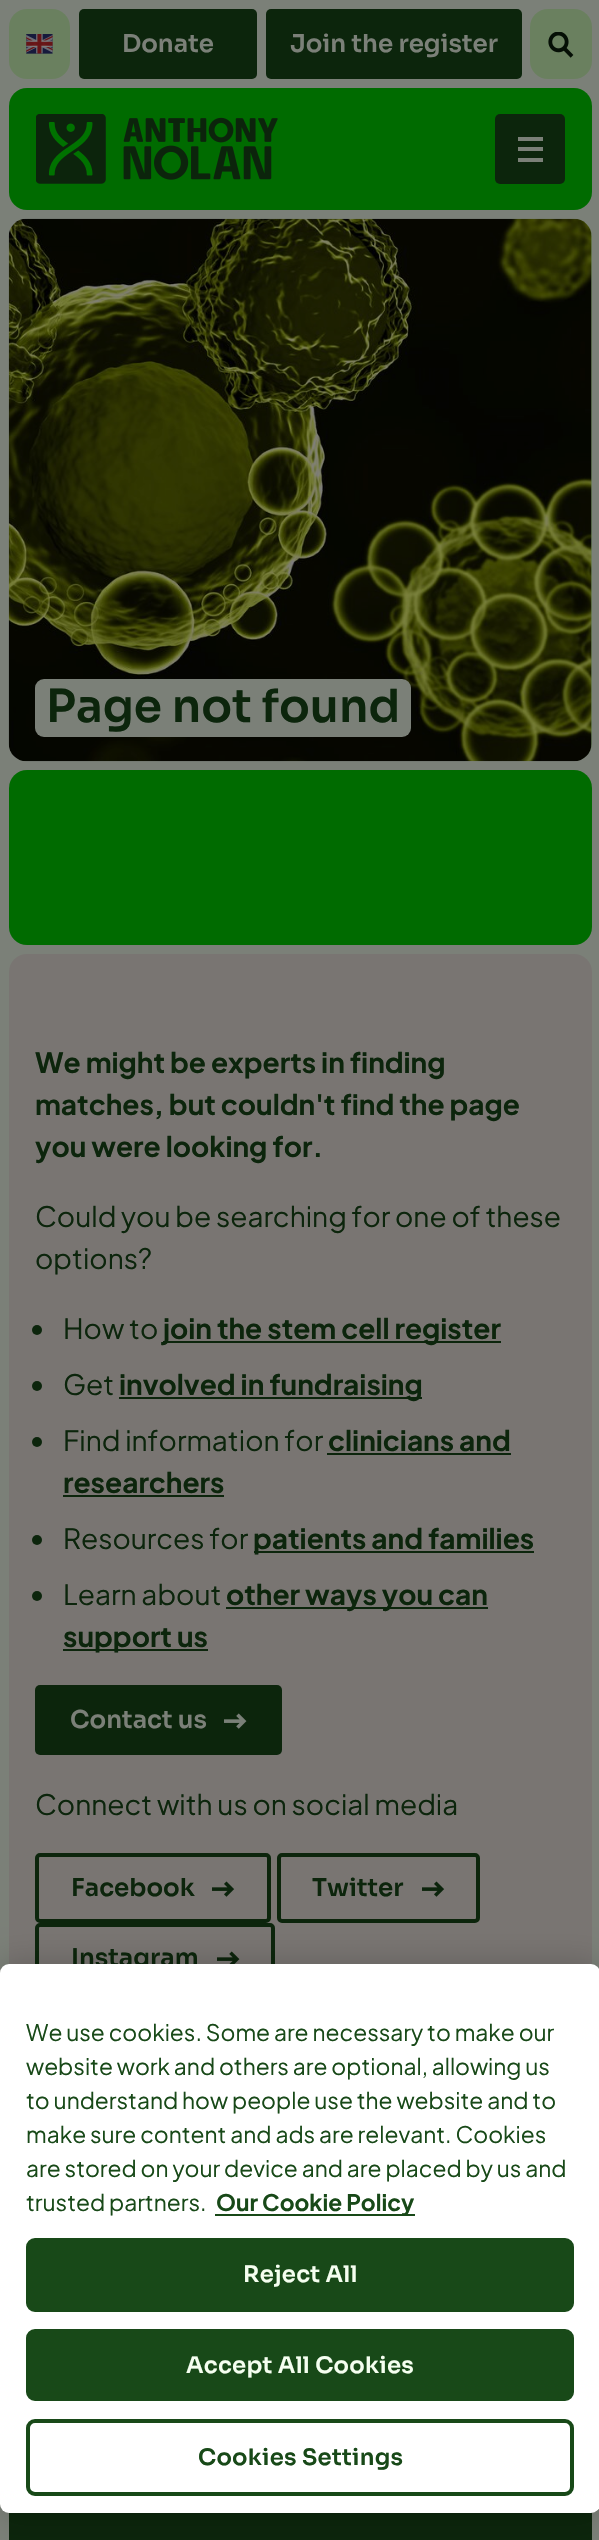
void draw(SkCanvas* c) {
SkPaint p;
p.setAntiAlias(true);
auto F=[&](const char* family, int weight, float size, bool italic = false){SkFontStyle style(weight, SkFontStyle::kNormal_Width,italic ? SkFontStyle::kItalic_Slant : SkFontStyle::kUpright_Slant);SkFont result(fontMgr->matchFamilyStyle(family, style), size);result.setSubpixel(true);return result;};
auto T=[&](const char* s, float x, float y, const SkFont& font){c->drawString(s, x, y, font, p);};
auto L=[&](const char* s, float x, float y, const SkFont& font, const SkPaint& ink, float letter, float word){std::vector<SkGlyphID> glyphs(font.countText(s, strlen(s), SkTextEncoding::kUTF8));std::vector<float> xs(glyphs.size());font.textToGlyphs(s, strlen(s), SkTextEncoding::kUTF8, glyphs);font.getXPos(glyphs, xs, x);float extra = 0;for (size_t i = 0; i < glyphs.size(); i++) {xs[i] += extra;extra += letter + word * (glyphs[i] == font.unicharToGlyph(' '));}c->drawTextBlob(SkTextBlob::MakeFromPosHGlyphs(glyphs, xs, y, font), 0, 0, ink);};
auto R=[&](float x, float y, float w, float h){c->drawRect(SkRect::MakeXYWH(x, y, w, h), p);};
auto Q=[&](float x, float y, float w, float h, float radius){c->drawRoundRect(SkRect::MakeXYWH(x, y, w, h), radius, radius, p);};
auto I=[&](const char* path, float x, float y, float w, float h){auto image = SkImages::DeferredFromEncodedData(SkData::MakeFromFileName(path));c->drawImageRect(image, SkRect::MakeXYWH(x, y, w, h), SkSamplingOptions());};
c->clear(0xff7b8078);
p.setColor(0xff6a805f);
Q(9,9,61,70,18);
I("1.png",26,34,27,20);
p.setColor(0xff0c250c);
Q(79,9,178,70,5);
auto f1 = F("Sora",600,24.5);
p.setColor(0xff7b8078);
T("Donate",122,52,f1);
p.setColor(0xff0c250c);
Q(266,9,256,70,5);
p.setColor(0xff7b8078);
T("Join the register",290,52,f1);
p.setColor(0xff6a805f);
Q(530,9,62,70,18);
I("2.png",548,32,26,26);
p.setColor(0xff006b00);
Q(9,88,583,122,18);
I("3.png",36,114,242,70);
p.setColor(0xff0c250c);
Q(495,114,70,70,5);
p.setColor(0xff7b8078);
R(518,137,25,4);
R(518,147,25,4);
R(518,158,25,4);
p.setColor(0xff6a805f);
Q(9,219,583,542,18);
I("4.png",8,218,584,544);
p.setColor(0xff7b8078);
Q(35,679,376,58,9);
auto f2 = F("Sora",600,45.5);
p.setColor(0xff0c250c);
T("Page not found",46,722,f2);
p.setColor(0xff006b00);
Q(9,770,583,175,18);
p.setColor(0xff797572);
Q(9,954,583,1092,18);
auto f3 = F("Plus Jakarta Sans",700,28);
p.setColor(0xff0c250c);
T("We might be experts in finding",35,1073,f3);
T("matches, but couldn't find the page",35,1115,f3);
T("you were looking for.",35,1157,f3);
auto f4 = F("Plus Jakarta Sans",400,28);
T("Could you be searching for one of these",35,1227,f4);
T("options?",35,1269,f4);
c->drawCircle(37,1330,5,p);
T("How to",63,1339,f4);
R(163,1341,338,2);
T("join the stem cell register",163,1339,f3);
c->drawCircle(37,1386,5,p);
T("Get",63,1395,f4);
R(119,1397,303,2);
T("involved in fundraising",119,1395,f3);
c->drawCircle(37,1442,5,p);
T("Find information for",63,1451,f4);
T("clinicians and",328,1451,f3);
R(327,1453,184,2);
T("researchers",63,1493,f3);
R(63,1495,161,2);
c->drawCircle(37,1540,5,p);
T("Resources for",63,1549,f4);
R(254,1551,280,2);
T("patients and families",253,1549,f3);
c->drawCircle(37,1596,5,p);
T("Learn about",63,1605,f4);
R(226,1607,262,2);
T("other ways you can",226,1605,f3);
R(63,1649,145,2);
T("support us",63,1647,f3);
Q(35,1685,247,70,5);
p.setColor(0xff7b8078);
T("Contact us",70,1728,f1);
I("5.png",224,1713,23,16);
p.setColor(0xff0c250c);
T("Connect with us on social media",35,1815,f4);
p.setStroke(true);
p.setStrokeWidth(4);
c->drawRoundRect(SkRect::MakeXYWH(37,1855,232,66),3,3,p);
p.setStroke(false);
T("Facebook",71,1896,f1);
I("6.png",212,1881,23,16);
p.setStroke(true);
c->drawRoundRect(SkRect::MakeXYWH(279,1855,199,66),3,3,p);
p.setStroke(false);
T("Twitter",312,1896,f1);
I("6.png",422,1881,23,16);
p.setStroke(true);
c->drawRoundRect(SkRect::MakeXYWH(37,1925,236,66),3,3,p);
p.setStroke(false);
T("Instagram",71,1966,f1);
I("7.png",217,1951,23,13);
R(9,2512,583,28);
p.setColor(0x33000000);
p.setMaskFilter(SkMaskFilter::MakeBlur(kNormal_SkBlurStyle, 16));
c->drawRoundRect(SkRect::MakeXYWH(0,1964,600,549),9,9,p);
p.setMaskFilter(nullptr);
p.setColor(0xffffffff);
Q(0,1964,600,549,9);
auto f5 = F("Plus Jakarta Sans",400,22.75);
p.setColor(0xff184918);
T("We use cookies. Some are necessary to make our",26,2041,f5);
T("website work and others are optional, allowing us",26,2075,f5);
T("to understand how people use the website and to",26,2109,f5);
T("make sure content and ads are relevant. Cookies",26,2143,f5);
T("are stored on your device and are placed by us and",26,2177,f5);
T("trusted partners.",26,2211,f5);
R(215,2214,200,2);
auto f6 = F("Plus Jakarta Sans",700,22.75);
T("Our Cookie Policy",216,2211,f6);
c->drawRoundRect(SkRect::MakeXYWH(27,2239,546,72),8,8,p);
p.setStroke(true);
p.setStrokeWidth(2);
c->drawRoundRect(SkRect::MakeXYWH(27,2239,546,72),8,8,p);
auto f7 = F("Sora",600,22.75);
p.setStroke(false);
p.setColor(0xfff5fff0);
L("Reject All",243,2282,f7,p,.25,0);
p.setColor(0xff184918);
c->drawRoundRect(SkRect::MakeXYWH(27,2330,546,70),8,8,p);
p.setStroke(true);
c->drawRoundRect(SkRect::MakeXYWH(27,2330,546,70),8,8,p);
p.setStroke(false);
p.setColor(0xfff5fff0);
L("Accept All Cookies",186,2373,f7,p,.25,0);
p.setStroke(true);
p.setStrokeWidth(4);
p.setColor(0xff184918);
c->drawRoundRect(SkRect::MakeXYWH(28,2421,544,73),7,7,p);
p.setStroke(false);
L("Cookies Settings",198,2465,f7,p,.25,0);
}
